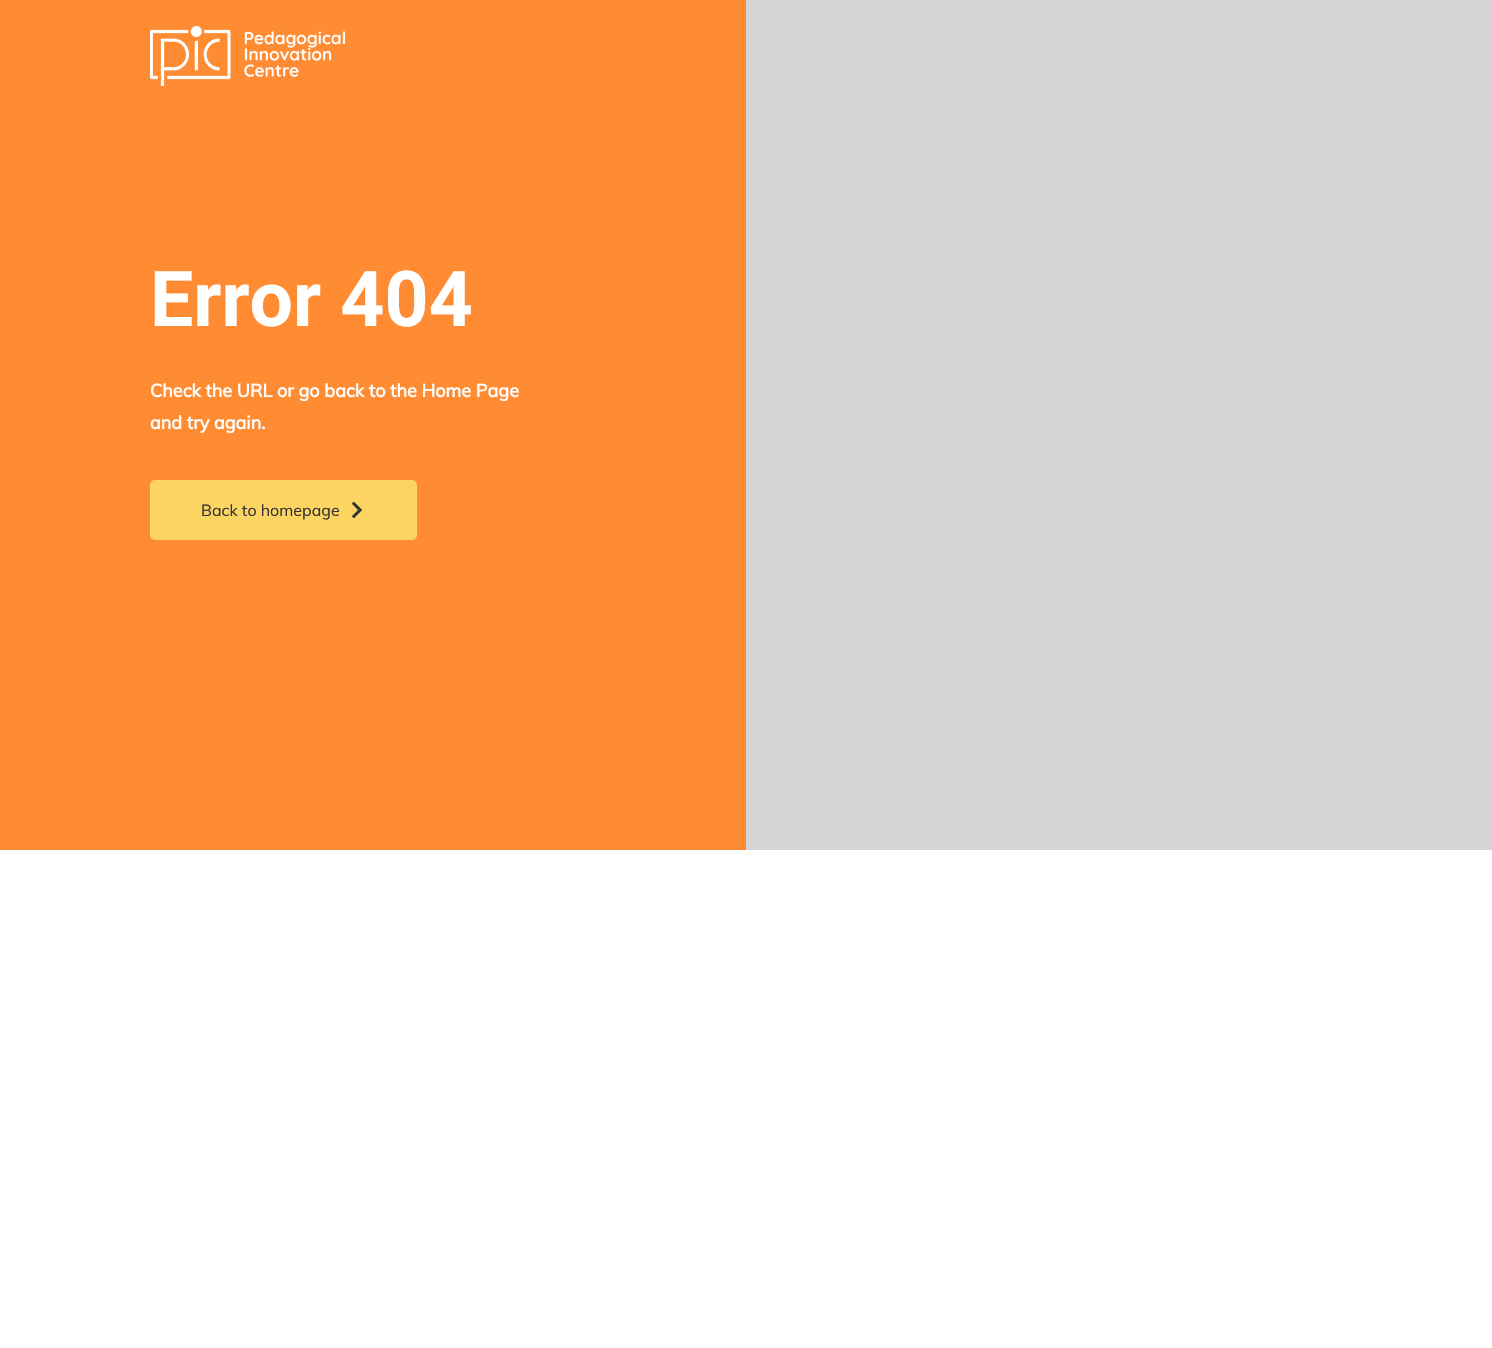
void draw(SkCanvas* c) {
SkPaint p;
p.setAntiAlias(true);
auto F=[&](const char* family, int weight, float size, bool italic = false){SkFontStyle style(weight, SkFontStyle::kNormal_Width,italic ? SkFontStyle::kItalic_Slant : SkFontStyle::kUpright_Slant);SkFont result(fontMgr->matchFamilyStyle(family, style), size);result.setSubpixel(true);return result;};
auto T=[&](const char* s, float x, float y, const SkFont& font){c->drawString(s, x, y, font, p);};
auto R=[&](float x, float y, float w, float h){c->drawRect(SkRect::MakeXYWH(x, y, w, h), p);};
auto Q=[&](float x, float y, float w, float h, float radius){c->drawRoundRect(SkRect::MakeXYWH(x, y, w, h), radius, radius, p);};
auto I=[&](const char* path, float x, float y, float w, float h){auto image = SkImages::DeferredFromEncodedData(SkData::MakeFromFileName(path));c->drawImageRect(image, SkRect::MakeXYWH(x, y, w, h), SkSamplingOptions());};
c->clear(0xffffffff);
p.setColor(0xffff8b33);
R(0,0,746,850);
I("1.png",150,26,195,60);
auto f1 = F("Roboto",700,77);
p.setColor(0xffffffff);
T("Error 404",150,326,f1);
auto f2 = F("Muli",700,18);
T("Check the URL or go back to the Home Page",150,397,f2);
T("and try again.",150,429,f2);
p.setColor(0xfffcd461);
Q(150,480,267,60,5);
auto f3 = F("Muli",400,16);
p.setColor(0xff333333);
T("Back to homepage",201,516,f3);
I("2.png",352,501,10,18);
p.setColor(0xffd5d5d5);
R(746,0,746,850);
}
